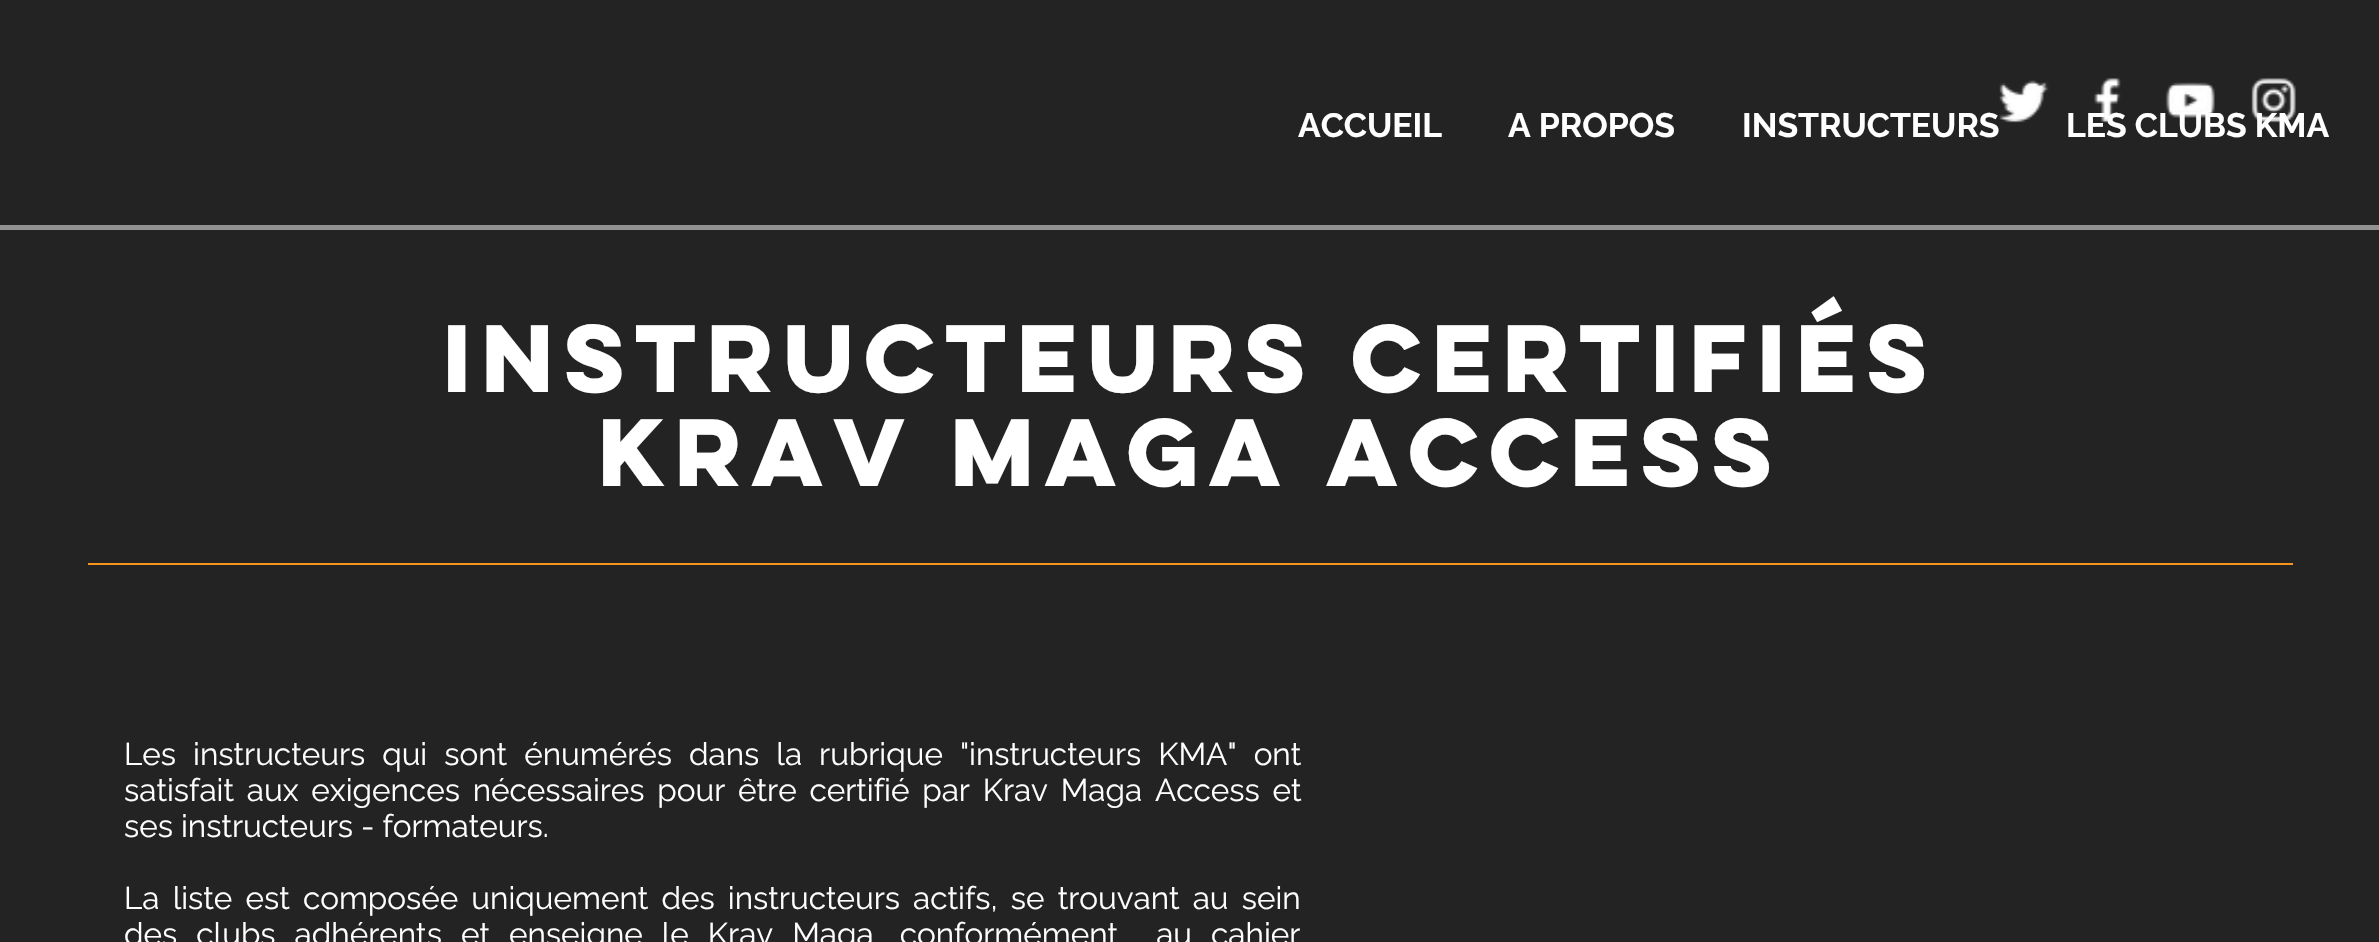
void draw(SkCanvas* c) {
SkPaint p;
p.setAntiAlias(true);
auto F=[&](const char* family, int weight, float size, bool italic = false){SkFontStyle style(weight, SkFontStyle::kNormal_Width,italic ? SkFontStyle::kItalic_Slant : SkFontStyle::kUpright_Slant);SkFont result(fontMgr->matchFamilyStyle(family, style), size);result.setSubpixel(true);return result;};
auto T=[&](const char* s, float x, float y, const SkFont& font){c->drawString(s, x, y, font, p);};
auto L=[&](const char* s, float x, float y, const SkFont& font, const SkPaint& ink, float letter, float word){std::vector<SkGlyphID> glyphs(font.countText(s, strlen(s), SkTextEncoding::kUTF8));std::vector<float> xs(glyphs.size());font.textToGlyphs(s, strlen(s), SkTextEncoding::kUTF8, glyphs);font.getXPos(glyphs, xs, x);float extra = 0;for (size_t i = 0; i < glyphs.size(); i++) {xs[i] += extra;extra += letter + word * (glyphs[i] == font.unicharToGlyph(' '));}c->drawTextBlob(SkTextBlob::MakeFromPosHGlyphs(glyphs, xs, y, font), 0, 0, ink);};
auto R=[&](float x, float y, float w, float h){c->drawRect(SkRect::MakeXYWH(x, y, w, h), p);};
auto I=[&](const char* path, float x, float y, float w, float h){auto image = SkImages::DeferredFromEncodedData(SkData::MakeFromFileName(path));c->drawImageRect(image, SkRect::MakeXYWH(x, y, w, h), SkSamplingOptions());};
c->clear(0xff242323);
I("1.png",1999,80,50,43);
auto f1 = F("Raleway",700,33.75);
p.setColor(0xffffffff);
T("LES CLUBS KMA",2066,137,f1);
I("2.png",2094,78,27,45);
I("3.png",2165,82,50,36);
I("4.png",2251,78,45,45);
T("ACCUEIL",1298,137,f1);
T("A PROPOS",1508,137,f1);
T("INSTRUCTEURS",1742,137,f1);
p.setColor(0xff919191);
R(0,225,2379,5);
auto f2 = F("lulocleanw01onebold",700,85.5);
p.setColor(0xffffffff);
L("Instructeurs certifiés",443,392,f2,p,-8.55,0);
L("krav maga access",598,486,f2,p,-8.55,0);
p.setColor(0xfff7941e);
R(88,563,2205,2);
auto f3 = F("Raleway",400,31.5);
p.setColor(0xffffffff);
L("Les instructeurs qui sont énumérés dans la rubrique \"instructeurs KMA\" ont",124,765,f3,p,0,9);
L("satisfait aux exigences nécessaires pour être certifié par Krav Maga Access et",124,801,f3,p,0,4.75);
T("ses instructeurs - formateurs.",124,837,f3);
L("La liste est composée uniquement des instructeurs actifs, se trouvant au sein",124,909,f3,p,0,5.1);
L("des clubs adhérents et enseigne le Krav Maga, conformément  au cahier",124,945,f3,p,0,11);
}
